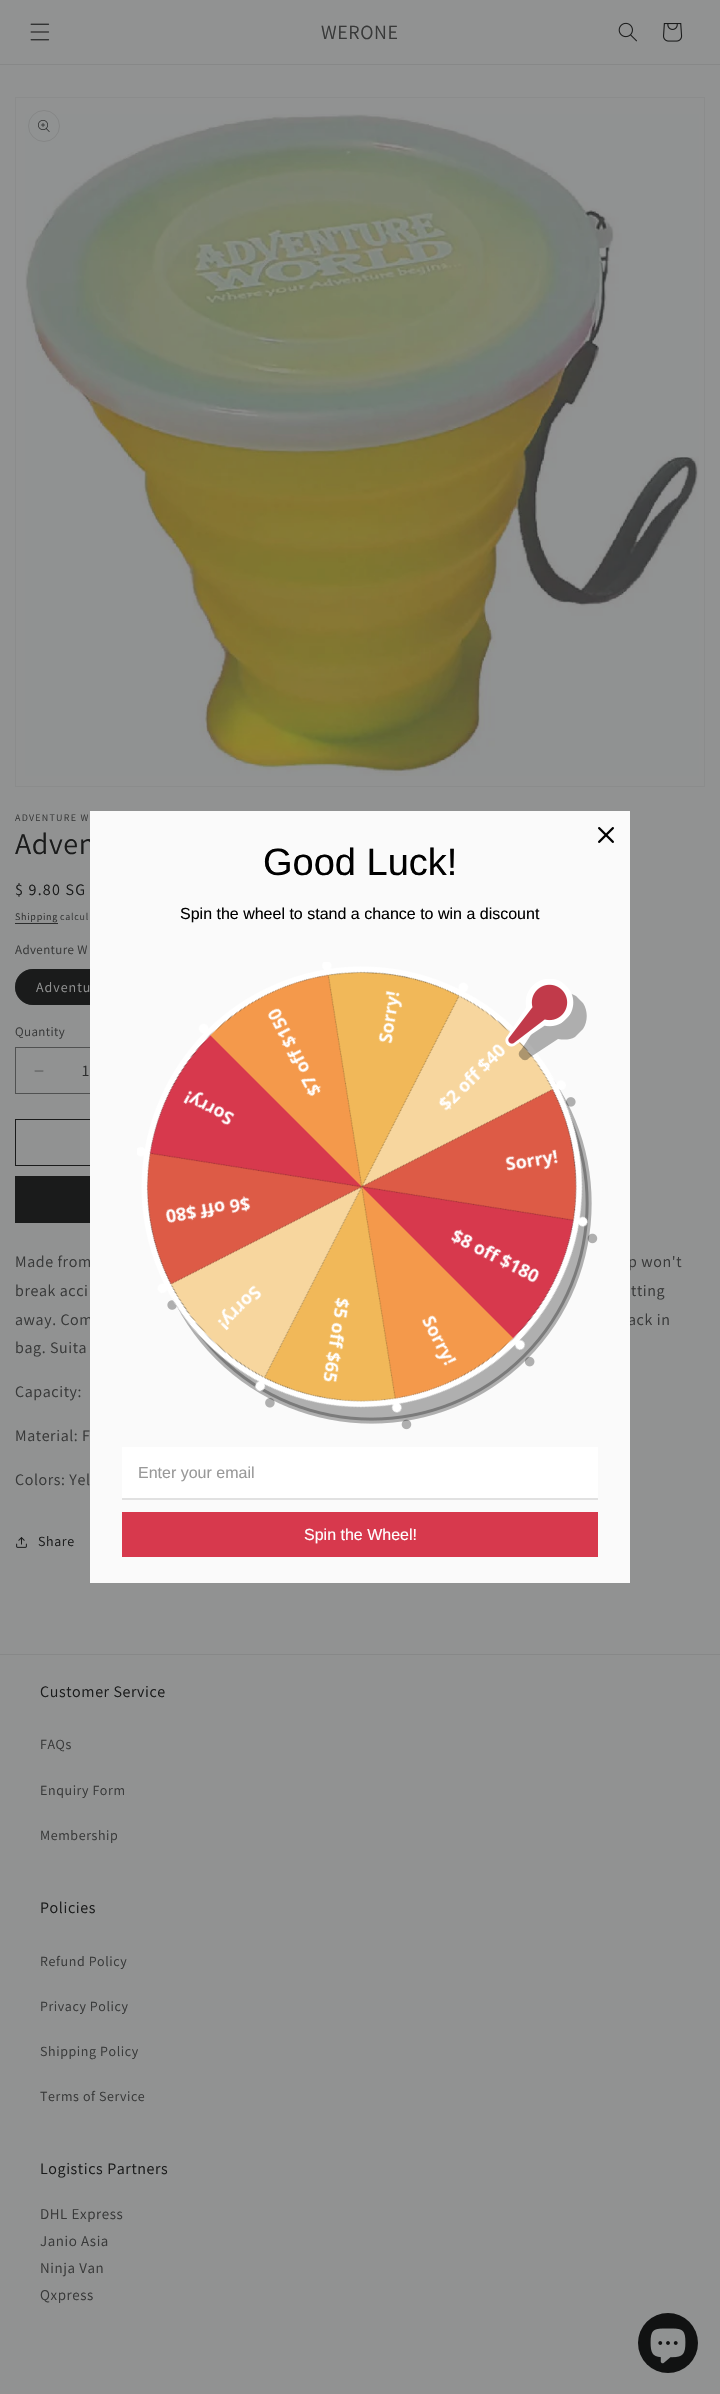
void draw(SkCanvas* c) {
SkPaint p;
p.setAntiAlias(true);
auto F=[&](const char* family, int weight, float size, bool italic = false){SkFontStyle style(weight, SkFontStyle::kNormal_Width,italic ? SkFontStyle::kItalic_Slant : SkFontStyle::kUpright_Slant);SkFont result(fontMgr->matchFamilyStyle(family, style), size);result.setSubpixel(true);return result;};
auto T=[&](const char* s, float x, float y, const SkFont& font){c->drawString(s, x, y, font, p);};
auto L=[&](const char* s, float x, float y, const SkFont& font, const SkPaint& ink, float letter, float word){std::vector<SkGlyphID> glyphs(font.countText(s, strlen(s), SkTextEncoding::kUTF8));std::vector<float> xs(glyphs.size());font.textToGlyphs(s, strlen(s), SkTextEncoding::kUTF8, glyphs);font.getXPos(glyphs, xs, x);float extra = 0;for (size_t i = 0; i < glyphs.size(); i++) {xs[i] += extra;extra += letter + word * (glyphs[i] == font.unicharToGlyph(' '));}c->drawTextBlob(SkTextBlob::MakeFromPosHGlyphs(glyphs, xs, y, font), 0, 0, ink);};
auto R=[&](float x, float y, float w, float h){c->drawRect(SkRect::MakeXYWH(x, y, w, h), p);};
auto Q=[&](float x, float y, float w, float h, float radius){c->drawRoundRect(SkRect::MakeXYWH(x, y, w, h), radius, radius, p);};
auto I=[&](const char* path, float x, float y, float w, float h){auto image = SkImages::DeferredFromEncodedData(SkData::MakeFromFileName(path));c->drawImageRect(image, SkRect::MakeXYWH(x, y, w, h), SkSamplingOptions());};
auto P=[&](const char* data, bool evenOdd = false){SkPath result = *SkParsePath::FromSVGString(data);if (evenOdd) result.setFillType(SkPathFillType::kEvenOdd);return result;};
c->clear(0xff919292);
p.setColor(0xff878888);
R(0,64,720,1);
I("1.png",30,23,20,18);
auto f1 = F("Assistant",400,20);
p.setColor(0xff383939);
L("WERONE",321,39,f1,p,.6,0);
I("2.png",618,22,19,20);
I("3.png",663,23,20,19);
p.setStroke(true);
p.setStrokeWidth(1);
p.setColor(0xff8b8c8c);
c->drawRect(SkRect::MakeXYWH(15.5,97.5,689,689),p);
I("5.png",25,114,674,662);
p.setColor(0xff858686);
c->drawCircle(44,126,15.5,p);
I("4.png",38,120,12,12);
auto f2 = F("Assistant",400,10);
p.setStroke(false);
p.setColor(0xff383939);
L("ADVENTURE W",15,821,f2,p,1.25,0);
auto f3 = F("Assistant",400,30);
p.setColor(0xff1a1b1b);
L("Adven",15,854,f3,p,.6,0);
auto f4 = F("Assistant",400,16);
L("$ 9.80 SG",15,895,f4,p,1.25,0);
p.setColor(0xff2c2d2d);
L("Shipping",15,920,f2,p,.75,0);
R(15,923,43,1);
p.setColor(0xff383939);
L("calcul",60,920,f2,p,.75,0);
auto f5 = F("Assistant",400,13);
L("Adventure W",15,954,f5,p,.4,0);
p.setColor(0xff1a1b1b);
Q(15,969,305,36,18);
p.setStroke(true);
p.setColor(0x8c1a1b1b);
c->drawRoundRect(SkRect::MakeXYWH(15.5,969.5,304,35),17.5,17.5,p);
auto f6 = F("Assistant",400,14);
p.setStroke(false);
p.setColor(0xff919292);
L("Adventu",36,992,f6,p,1,0);
p.setColor(0xff383939);
L("Quantity",15,1036,f5,p,.4,0);
I("6.png",34,1070,10,2);
p.setStroke(true);
p.setColor(0xff505151);
c->drawRect(SkRect::MakeXYWH(15.5,1047.5,141,46),p);
p.setStroke(false);
p.setColor(0xff2c2d2d);
T("1",82,1076,f4);
p.setStroke(true);
p.setColor(0xff1a1b1b);
c->drawRect(SkRect::MakeXYWH(15.5,1119.5,439,46),p);
p.setStroke(false);
R(15,1176,75,47);
p.setColor(0xff383939);
L("Made from",15,1267,f4,p,.6,0);
L("p won't",628,1267,f4,p,.6,0);
L("break acci",15,1296,f4,p,.6,0);
L("tting",631,1296,f4,p,.6,0);
L("away. Com",15,1325,f4,p,.6,0);
L("ack in",628,1325,f4,p,.6,0);
L("bag. Suita",15,1353,f4,p,.6,0);
L("Capacity:",15,1397,f4,p,.6,0);
L("Material: F",15,1441,f4,p,.6,0);
L("Colors: Yel",15,1485,f4,p,.6,0);
I("7.png",16,1537,11,11);
p.setColor(0xff1a1b1b);
L("Share",38,1546,f6,p,.6,0);
p.setColor(0xfffafafa);
R(90,811,540,772);
I("8.png",598,827,16,16);
auto f7 = F("Liberation Sans",400,38);
p.setColor(0xff000000);
T("Good Luck!",263,875,f7);
auto f8 = F("Liberation Sans",400,16);
T("Spin the wheel to stand a chance to win a discount",180,919,f8);
I("11.png",167,1070,431,360);
I("9.png",137,962,451,451);
p.setColor(0x4d000000);
c->drawPath(P("M583 1029l-8 8c-5 3-11 3-17 2l-29 19c-2 3-6 3-8 0c-3-2-3-6 0-8l19-29c-2-8 0-16 6-22c8-8 21-9 30-3l7 7c5 8 5 18 0 26z"),p);
I("10.png",505,979,69,68);
p.setColor(0xffffffff);
R(122,1447,476,51);
p.setColor(0xffe1e1e1);
R(122,1498,476,2);
p.setColor(0xff999999);
T("Enter your email",138,1478,f8);
p.setColor(0xffd7394d);
R(122,1512,476,45);
p.setColor(0xffffffff);
T("Spin the Wheel!",304,1540,f8);
p.setColor(0xff878888);
R(0,1654,720,1);
p.setColor(0xff1a1b1b);
L("Customer Service",40,1697,f4,p,.6,0);
p.setColor(0xff383939);
L("FAQs",40,1749,f6,p,.6,0);
L("Enquiry Form",40,1795,f6,p,.6,0);
L("Membership",40,1840,f6,p,.6,0);
p.setColor(0xff1a1b1b);
L("Policies",40,1913,f4,p,.6,0);
p.setColor(0xff383939);
L("Refund Policy",40,1966,f6,p,.6,0);
L("Privacy Policy",40,2011,f6,p,.6,0);
L("Shipping Policy",40,2056,f6,p,.6,0);
L("Terms of Service",40,2101,f6,p,.6,0);
p.setColor(0xff1a1b1b);
L("Logistics Partners",40,2174,f4,p,.6,0);
auto f9 = F("Assistant",400,15);
p.setColor(0xff383939);
L("DHL Express",40,2219,f9,p,.6,0);
L("Janio Asia",40,2246,f9,p,.6,0);
L("Ninja Van",40,2273,f9,p,.6,0);
L("Qxpress",40,2300,f9,p,.6,0);
p.setColor(0xff111212);
c->drawCircle(668,2343,30,p);
I("12.png",650,2328,36,36);
}
